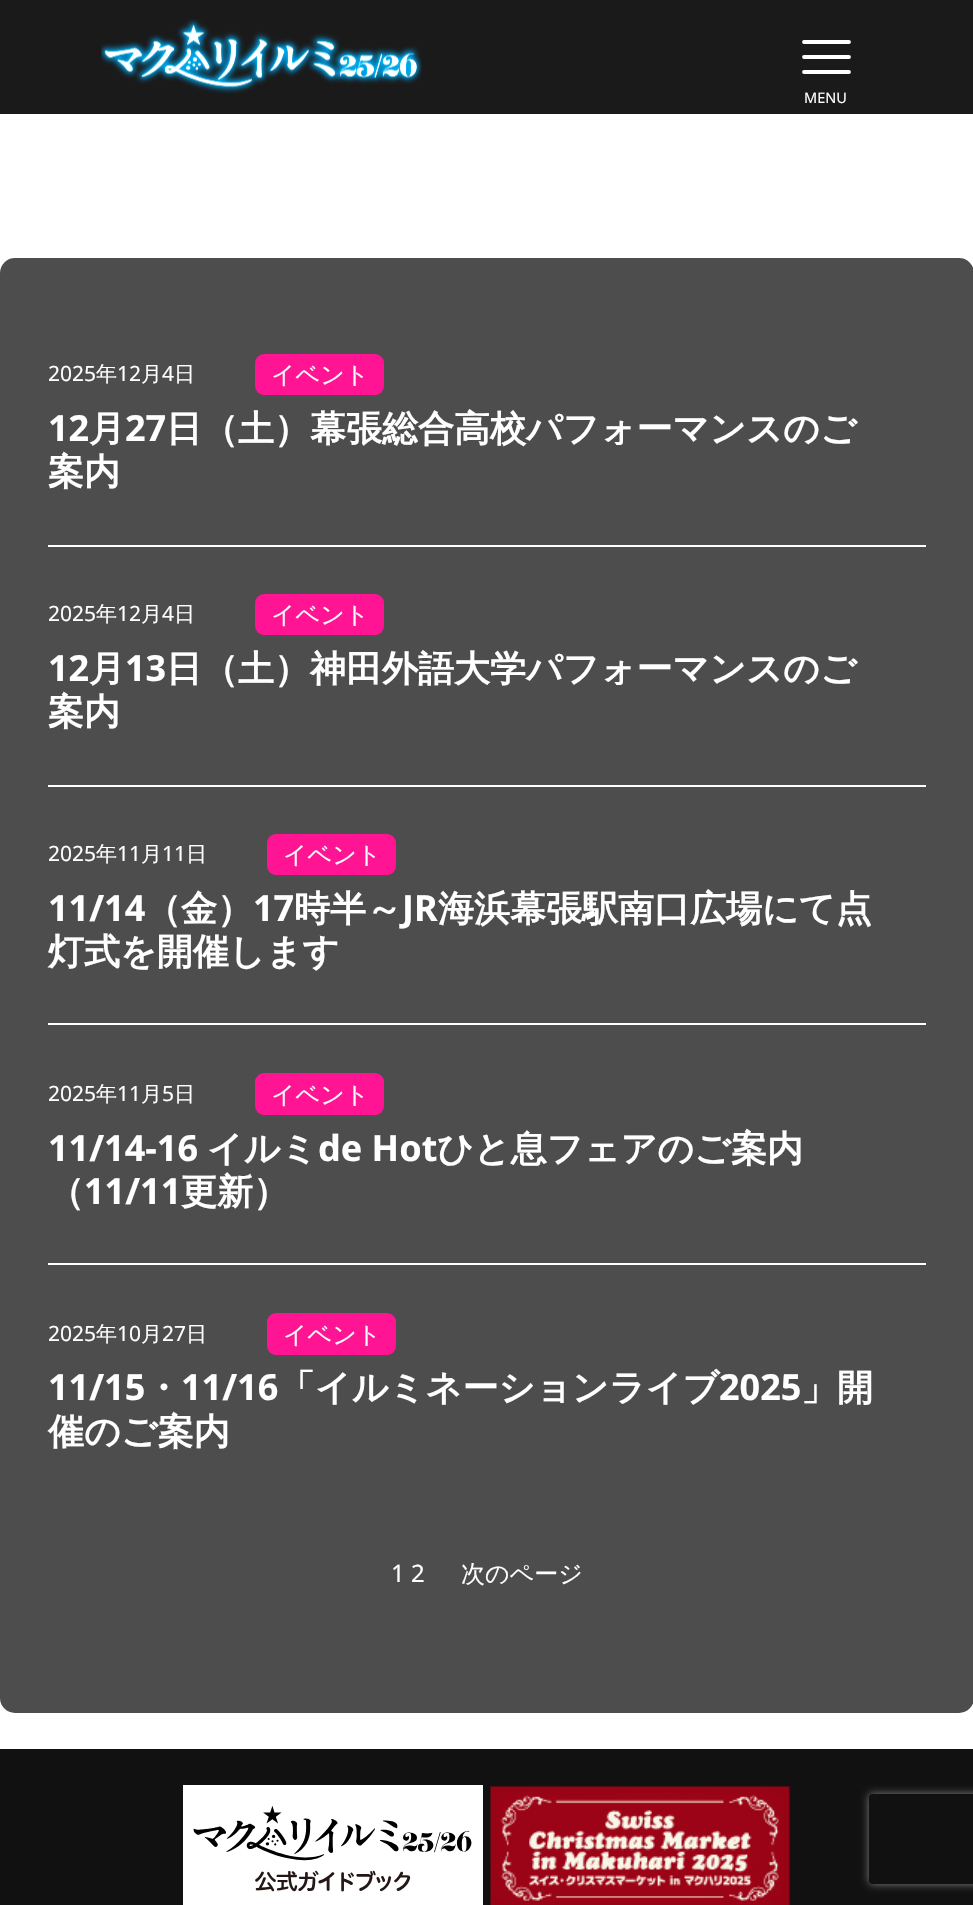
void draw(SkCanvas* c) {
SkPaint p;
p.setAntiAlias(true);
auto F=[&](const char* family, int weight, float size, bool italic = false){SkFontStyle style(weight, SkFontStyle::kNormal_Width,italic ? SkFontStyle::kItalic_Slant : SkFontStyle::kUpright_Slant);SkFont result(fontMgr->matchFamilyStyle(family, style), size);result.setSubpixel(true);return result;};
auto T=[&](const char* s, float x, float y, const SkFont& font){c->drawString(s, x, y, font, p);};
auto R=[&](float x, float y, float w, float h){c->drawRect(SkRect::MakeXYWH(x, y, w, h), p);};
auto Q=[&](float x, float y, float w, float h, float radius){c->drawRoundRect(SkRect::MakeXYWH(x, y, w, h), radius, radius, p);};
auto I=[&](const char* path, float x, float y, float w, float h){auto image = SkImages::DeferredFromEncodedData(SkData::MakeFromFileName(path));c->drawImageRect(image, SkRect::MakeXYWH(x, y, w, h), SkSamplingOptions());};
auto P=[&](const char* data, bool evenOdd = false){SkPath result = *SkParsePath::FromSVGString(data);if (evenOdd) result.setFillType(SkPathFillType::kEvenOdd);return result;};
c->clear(0xffffffff);
p.setColor(0xff1a1a1a);
R(0,0,973,114);
I("1.png",101,19,321,75);
p.setStroke(true);
p.setStrokeWidth(3.8);
p.setStrokeCap(SkPaint::kRound_Cap);
p.setColor(0xffffffff);
c->drawPath(P("M804 42h45m-45 15h45m-45 15h45"),p);
auto f1 = F("Noto Sans",400,14.5);
p.setStroke(false);
T("MENU",804,103,f1);
p.setColor(0xff4d4d4d);
Q(0,258,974,1455,15);
p.setColor(0xffffffff);
R(48,545,878,2);
auto f2 = F("Noto Sans",400,21);
T("2025",48,381,f2);
auto f3 = F("WenQuanYi Zen Hei",500,21);
T("年",96,381,f3);
T("12",117,381,f2);
T("月",141,381,f3);
T("4",162,381,f2);
T("日",174,381,f3);
p.setColor(0xffff1493);
Q(255,354,129,41,9);
auto f4 = F("WenQuanYi Zen Hei",500,24);
p.setColor(0xffffffff);
T("イベント",271,383,f4);
auto f5 = F("Noto Sans",700,36);
T("12",48,441,f5);
auto f6 = F("WenQuanYi Zen Hei",700,36);
T("月",89,441,f6);
T("27",125,441,f5);
T("日（土）幕張総合高校パフォーマンスのご",166,441,f6);
T("案内",48,484,f6);
R(48,785,878,2);
T("2025",48,621,f2);
T("年",96,621,f3);
T("12",117,621,f2);
T("月",141,621,f3);
T("4",162,621,f2);
T("日",174,621,f3);
p.setColor(0xffff1493);
Q(255,594,129,41,9);
p.setColor(0xffffffff);
T("イベント",271,623,f4);
T("12",48,681,f5);
T("月",89,681,f6);
T("13",125,681,f5);
T("日（土）神田外語大学パフォーマンスのご",166,681,f6);
T("案内",48,724,f6);
R(48,1023,878,2);
T("2025",48,861,f2);
T("年",96,861,f3);
T("11",117,861,f2);
T("月",141,861,f3);
T("11",162,861,f2);
T("日",186,861,f3);
p.setColor(0xffff1493);
Q(267,834,129,41,9);
p.setColor(0xffffffff);
T("イベント",283,863,f4);
T("11/14",48,921,f5);
T("（金）",145,921,f6);
T("17",253,921,f5);
T("時半～",294,921,f6);
T("JR",402,921,f5);
T("海浜幕張駅南口広場にて点",438,921,f6);
T("灯式を開催します",48,964,f6);
R(48,1263,878,2);
T("2025",48,1101,f2);
T("年",96,1101,f3);
T("11",117,1101,f2);
T("月",141,1101,f3);
T("5",162,1101,f2);
T("日",174,1101,f3);
p.setColor(0xffff1493);
Q(255,1073,129,42,9);
p.setColor(0xffffffff);
T("イベント",271,1103,f4);
T("11/14-16",48,1161,f5);
T("イルミ",207,1161,f6);
T("de Hot",318,1161,f5);
T("ひと息フェアのご案内",437,1161,f6);
T("（",48,1204,f6);
T("11/11",84,1204,f5);
T("更新）",181,1204,f6);
T("2025",48,1341,f2);
T("年",96,1341,f3);
T("10",117,1341,f2);
T("月",141,1341,f3);
T("27",162,1341,f2);
T("日",186,1341,f3);
p.setColor(0xffff1493);
Q(267,1313,129,42,9);
p.setColor(0xffffffff);
T("イベント",283,1343,f4);
T("11/15",48,1400,f5);
T("・",145,1400,f6);
T("11/16",181,1400,f5);
T("「イルミネーションライブ",279,1400,f6);
T("2025",719,1400,f5);
T("」開",801,1400,f6);
T("催のご案内",48,1444,f6);
auto f7 = F("Noto Sans",400,24);
T("1 2",391,1582,f7);
T("次のページ",461,1582,f4);
p.setColor(0xff111111);
R(0,1749,973,156);
I("2.png",183,1785,300,120);
I("3.png",490,1786,301,119);
c->save();
c->clipPath(P("M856 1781h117v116h-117zm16 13h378c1.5 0 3 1.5 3 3v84c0 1.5-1.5 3-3 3h-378c-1.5 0-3-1.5-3-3v-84c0-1.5 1.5-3 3-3z",true),true);
p.setColor(0xff808080);
p.setMaskFilter(SkMaskFilter::MakeBlur(kNormal_SkBlurStyle, 4));
c->drawRoundRect(SkRect::MakeXYWH(869,1794,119,90),3,3,p);
p.setMaskFilter(nullptr);
c->restore();
}
